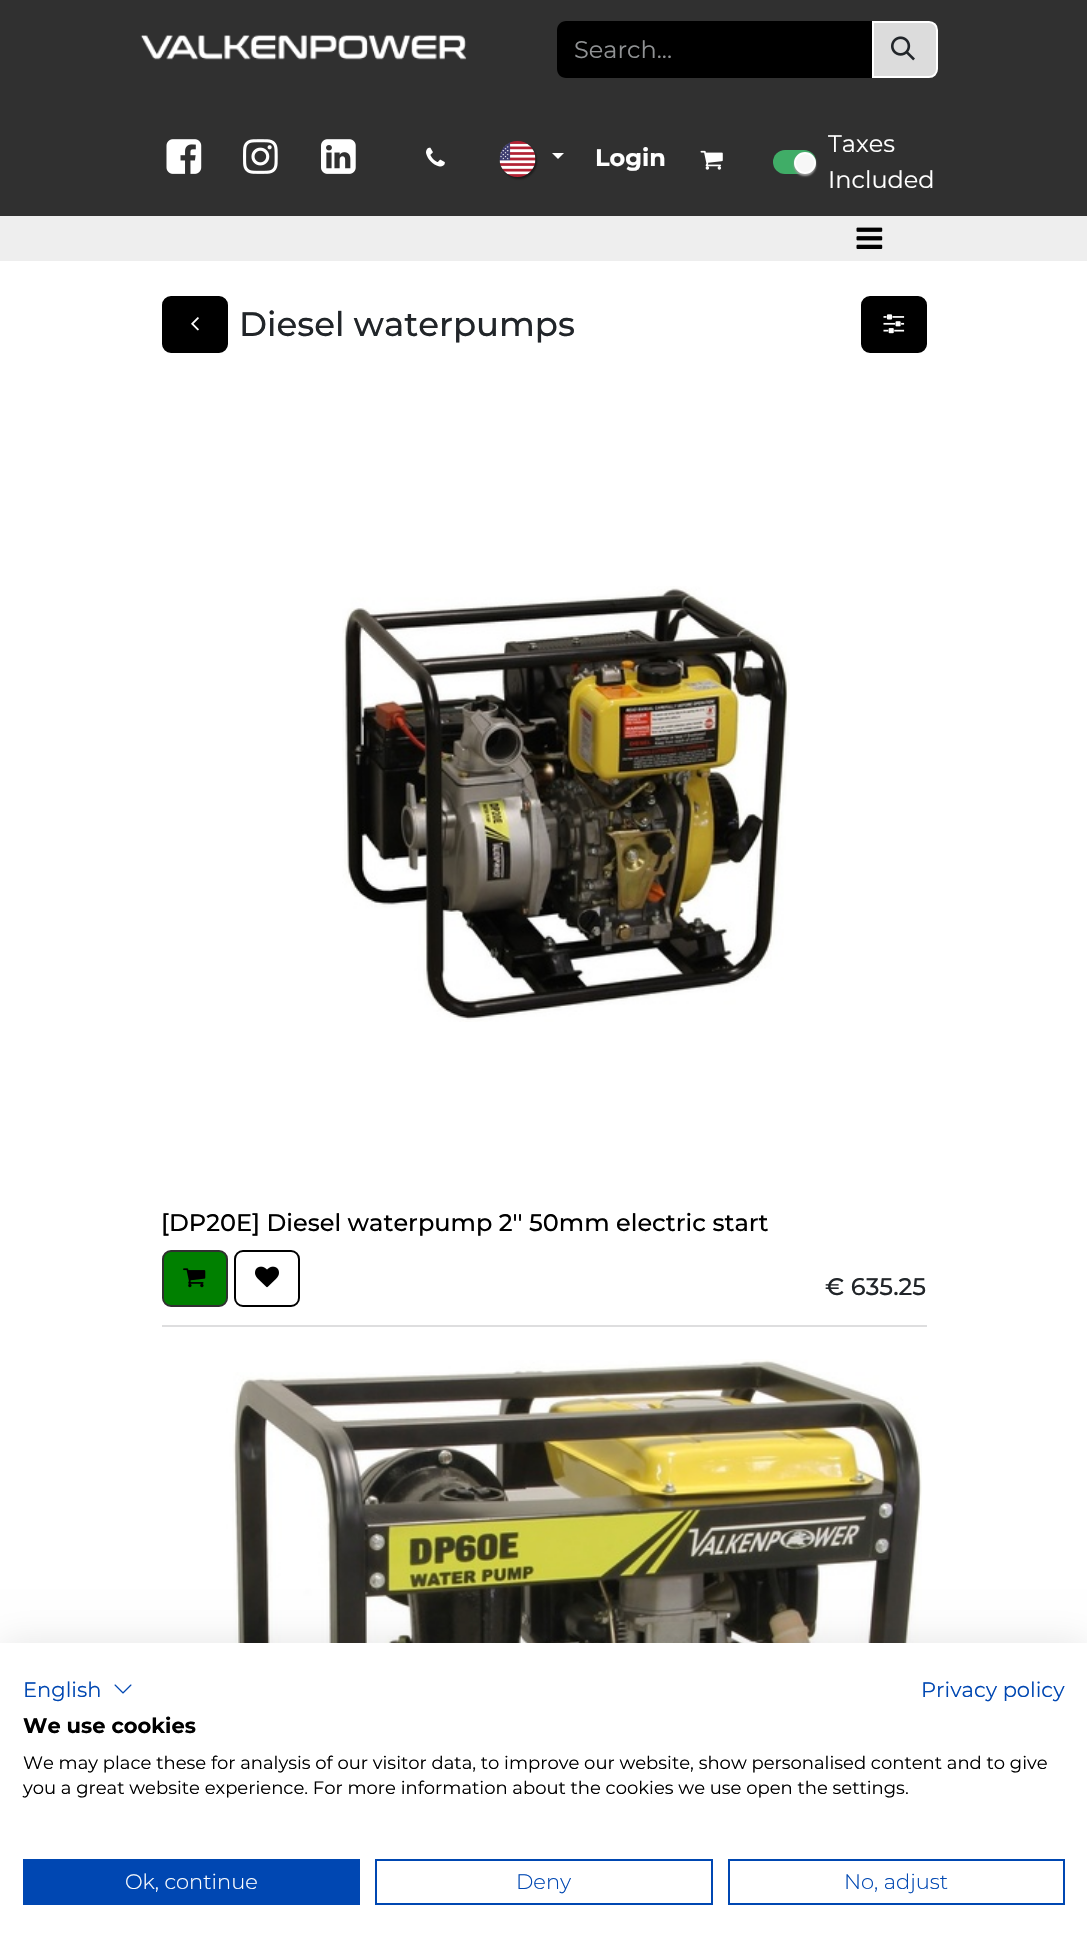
void draw(SkCanvas* c) {
SkPaint p;
p.setAntiAlias(true);
auto F=[&](const char* family, int weight, float size, bool italic = false){SkFontStyle style(weight, SkFontStyle::kNormal_Width,italic ? SkFontStyle::kItalic_Slant : SkFontStyle::kUpright_Slant);SkFont result(fontMgr->matchFamilyStyle(family, style), size);result.setSubpixel(true);return result;};
auto T=[&](const char* s, float x, float y, const SkFont& font){c->drawString(s, x, y, font, p);};
auto R=[&](float x, float y, float w, float h){c->drawRect(SkRect::MakeXYWH(x, y, w, h), p);};
auto Q=[&](float x, float y, float w, float h, float radius){c->drawRoundRect(SkRect::MakeXYWH(x, y, w, h), radius, radius, p);};
auto I=[&](const char* path, float x, float y, float w, float h){auto image = SkImages::DeferredFromEncodedData(SkData::MakeFromFileName(path));c->drawImageRect(image, SkRect::MakeXYWH(x, y, w, h), SkSamplingOptions());};
auto P=[&](const char* data, bool evenOdd = false){SkPath result = *SkParsePath::FromSVGString(data);if (evenOdd) result.setFillType(SkPathFillType::kEvenOdd);return result;};
c->clear(0xffffffff);
p.setColor(0xff303030);
R(0,0,1087,216);
I("1.png",140,35,327,25);
p.setColor(0xff000000);
c->drawPath(P("M566 21h307v57h-307c-5 0-9-4-9-9v-39c0-5 4-9 9-9z"),p);
auto f1 = F("Montserrat",400,24);
p.setColor(0xff909294);
T("Search...",574,58,f1);
p.setColor(0xffdcdcdc);
c->drawPath(P("M873 22h56c4.5 0 8 3.5 8 8v39c0 4.5-3.5 8-8 8h-56z"),p);
p.setStroke(true);
p.setStrokeWidth(2);
p.setColor(0xffffffff);
c->drawPath(P("M873 22h56c4.5 0 8 3.5 8 8v39c0 4.5-3.5 8-8 8h-56z"),p);
I("2.png",891,36,24,25);
I("3.png",166,139,36,35);
I("4.png",243,139,35,35);
I("5.png",321,139,35,35);
I("6.png",426,147,19,20);
p.setStroke(false);
p.setColor(0x6e000000);
p.setMaskFilter(SkMaskFilter::MakeBlur(kNormal_SkBlurStyle, 1));
c->drawRoundRect(SkRect::MakeXYWH(501,143,36,36),18,18,p);
p.setMaskFilter(nullptr);
I("7.png",499,141,37,36);
p.setColor(0xffffffff);
c->drawPath(P("M552 153h12l-6 6z"),p);
auto f2 = F("Montserrat",700,24);
T("Login",595,166,f2);
I("8.png",700,150,23,20);
p.setColor(0xff40ad67);
Q(773,150,43,24,12);
p.setColor(0xff9e9e9e);
p.setMaskFilter(SkMaskFilter::MakeBlur(kNormal_SkBlurStyle, 1));
c->drawRoundRect(SkRect::MakeXYWH(794,153,22,23),11,11,p);
p.setMaskFilter(nullptr);
p.setColor(0xfff7f7f7);
c->drawCircle(805,163,10,p);
p.setStroke(true);
p.setColor(0xffffffff);
c->drawCircle(805,163,10,p);
p.setStroke(false);
T("Taxes",828,152,f1);
T("Included",828,188,f1);
p.setColor(0xffeeeeee);
R(0,216,1087,45);
I("9.png",856,227,27,22);
p.setColor(0xff000000);
c->drawRoundRect(SkRect::MakeXYWH(163,297,64,55),8,8,p);
p.setStroke(true);
c->drawRoundRect(SkRect::MakeXYWH(163,297,64,55),8,8,p);
I("10.png",191,317,8,14);
auto f3 = F("Montserrat",500,33.9);
p.setStroke(false);
p.setColor(0xff212529);
T("Diesel waterpumps",239,336,f3);
p.setColor(0xff000000);
c->drawRoundRect(SkRect::MakeXYWH(862,297,64,55),8,8,p);
p.setStroke(true);
c->drawRoundRect(SkRect::MakeXYWH(862,297,64,55),8,8,p);
I("11.png",883,314,22,20);
p.setStroke(false);
p.setColor(0xffdededf);
R(162,1325,765,2);
I("12.png",342,586,448,436);
auto f4 = F("Montserrat",500,24);
p.setColor(0xff000000);
T("[DP20E] Diesel waterpump 2'' 50mm electric start",161,1231,f4);
p.setColor(0xff008000);
c->drawRoundRect(SkRect::MakeXYWH(163,1251,64,55),8,8,p);
p.setStroke(true);
p.setColor(0xff303030);
c->drawRoundRect(SkRect::MakeXYWH(163,1251,64,55),8,8,p);
I("13.png",183,1268,23,20);
p.setColor(0xff000000);
c->drawRoundRect(SkRect::MakeXYWH(235,1251,64,55),8,8,p);
I("14.png",255,1266,24,22);
p.setStroke(false);
p.setColor(0xff212529);
T("€ 635.25",825,1295,f4);
I("15.png",162,1359,760,284);
p.setColor(0x1a000000);
p.setMaskFilter(SkMaskFilter::MakeBlur(kNormal_SkBlurStyle, 18));
c->drawRect(SkRect::MakeXYWH(0,1643,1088,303),p);
p.setMaskFilter(nullptr);
p.setColor(0xffffffff);
R(0,1643,1087,302);
auto f5 = F("Montserrat",400,21);
p.setColor(0xff0047b2);
T("English",23,1697,f5);
I("16.png",114,1684,18,10);
T("Privacy policy",921,1697,f5);
auto f6 = F("Montserrat",700,21);
p.setColor(0xff000000);
T("We use cookies",23,1733,f6);
auto f7 = F("Montserrat",400,18);
T("We may place these for analysis of our visitor data, to improve our website, show personalised content and to give",23,1769,f7);
T("you a great website experience. For more information about the cookies we use open the settings.",23,1794,f7);
p.setColor(0xff0047b2);
R(23,1859,337,46);
auto f8 = F("Montserrat",300,21);
p.setColor(0xffffffff);
T("Ok, continue",125,1889,f8);
p.setStroke(true);
p.setColor(0xff0047b2);
c->drawRect(SkRect::MakeXYWH(376,1860,336,44),p);
p.setStroke(false);
T("Deny",516,1889,f8);
p.setStroke(true);
c->drawRect(SkRect::MakeXYWH(729,1860,335,44),p);
p.setStroke(false);
T("No, adjust",844,1889,f8);
}
